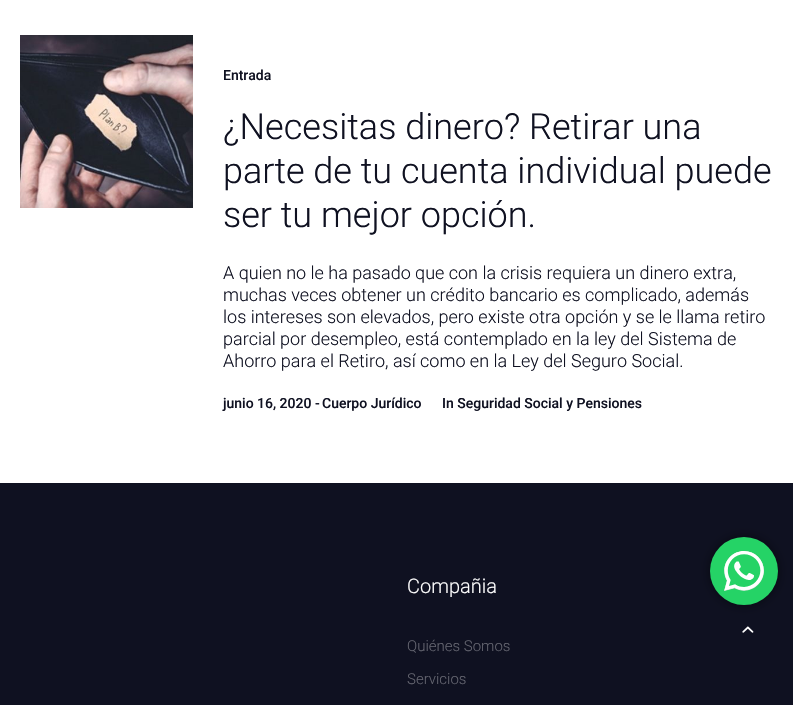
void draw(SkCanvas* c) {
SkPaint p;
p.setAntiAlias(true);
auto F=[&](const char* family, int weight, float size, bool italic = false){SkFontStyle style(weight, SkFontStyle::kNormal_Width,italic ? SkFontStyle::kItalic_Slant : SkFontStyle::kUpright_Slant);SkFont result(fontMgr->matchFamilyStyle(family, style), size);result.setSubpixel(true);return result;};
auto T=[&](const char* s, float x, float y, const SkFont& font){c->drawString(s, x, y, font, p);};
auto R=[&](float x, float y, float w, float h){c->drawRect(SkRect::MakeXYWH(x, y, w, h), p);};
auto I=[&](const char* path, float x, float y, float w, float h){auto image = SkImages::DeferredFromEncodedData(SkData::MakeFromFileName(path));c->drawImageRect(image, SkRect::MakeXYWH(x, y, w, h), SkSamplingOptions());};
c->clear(0xffffffff);
I("1.png",20,35,173,173);
auto f1 = F("Roboto",500,14);
p.setColor(0xff0f1121);
T("Entrada",223,80,f1);
auto f2 = F("Roboto",300,36);
T("¿Necesitas dinero? Retirar una",223,139,f2);
T("parte de tu cuenta individual puede",223,183,f2);
T("ser tu mejor opción.",223,227,f2);
auto f3 = F("Roboto",300,18);
T("A quien no le ha pasado que con la crisis requiera un dinero extra,",223,279,f3);
T("muchas veces obtener un crédito bancario es complicado, además",223,301,f3);
T("los intereses son elevados, pero existe otra opción y se le llama retiro",223,323,f3);
T("parcial por desempleo, está contemplado en la ley del Sistema de",223,345,f3);
T("Ahorro para el Retiro, así como en la Ley del Seguro Social.",223,367,f3);
T("junio 16, 2020",223,408,f1);
T("-",315,408,f1);
T("Cuerpo Jurídico",322,408,f1);
T("In Seguridad Social y Pensiones",442,408,f1);
R(0,483,793,222);
auto f4 = F("Roboto",300,20);
p.setColor(0xffffffff);
T("Compañia",407,593,f4);
auto f5 = F("Roboto",300,15);
p.setColor(0xff63646f);
T("Quiénes Somos",407,651,f5);
T("Servicios",407,684,f5);
I("2.png",742,626,12,7);
p.setColor(0x80000000);
p.setMaskFilter(SkMaskFilter::MakeBlur(kNormal_SkBlurStyle, 5.5));
c->drawRoundRect(SkRect::MakeXYWH(710,537,68,68),34,34,p);
p.setMaskFilter(nullptr);
p.setColor(0xff25d366);
c->drawCircle(744,571,34,p);
I("3.png",724,551,40,40);
}
